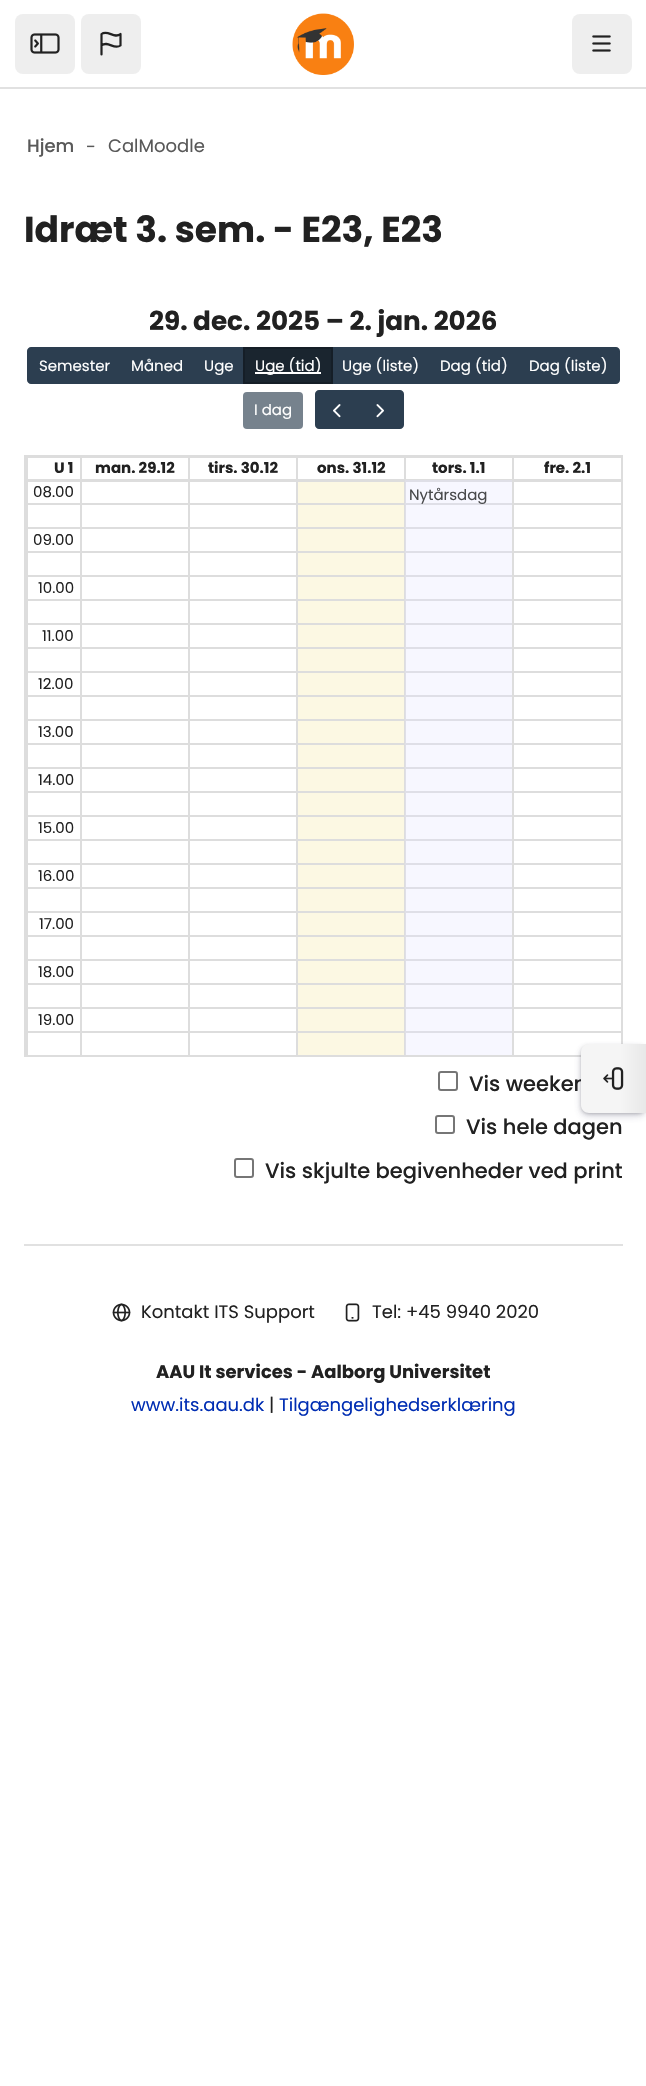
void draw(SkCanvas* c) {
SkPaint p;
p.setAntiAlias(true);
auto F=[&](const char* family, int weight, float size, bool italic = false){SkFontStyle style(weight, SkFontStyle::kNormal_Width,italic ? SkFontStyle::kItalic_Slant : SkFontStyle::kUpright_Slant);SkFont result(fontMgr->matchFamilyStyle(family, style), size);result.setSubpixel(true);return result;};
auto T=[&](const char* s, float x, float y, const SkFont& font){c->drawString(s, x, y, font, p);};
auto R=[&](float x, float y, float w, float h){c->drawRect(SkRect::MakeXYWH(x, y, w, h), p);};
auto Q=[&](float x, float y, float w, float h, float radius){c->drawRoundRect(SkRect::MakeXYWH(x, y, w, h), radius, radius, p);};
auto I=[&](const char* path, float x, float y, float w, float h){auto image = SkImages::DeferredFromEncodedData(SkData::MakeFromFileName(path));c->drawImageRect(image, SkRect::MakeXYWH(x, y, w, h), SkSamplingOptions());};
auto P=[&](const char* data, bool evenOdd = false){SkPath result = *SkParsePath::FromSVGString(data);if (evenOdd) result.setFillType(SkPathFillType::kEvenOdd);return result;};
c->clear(0xffffffff);
p.setColor(0xfff7f7ff);
R(406,482,106,573);
p.setColor(0xffe1e1e1);
R(0,87,646,2);
p.setColor(0xffeeeeee);
Q(15,14,60,60,8);
I("1.png",30,33,30,21);
Q(81,14,60,60,8);
p.setStroke(true);
p.setStrokeWidth(2.2);
p.setStrokeCap(SkPaint::kRound_Cap);
p.setStrokeJoin(SkPaint::kRound_Join);
p.setColor(0xff212121);
c->drawPath(P("M101.5 54.5v-9m0 0v-11.5c6.5-5 12.5 5.5 19 0v11.5c-6.5 5-12.5-5.5-19 0z"),p);
I("2.png",292,13,62,62);
p.setStroke(false);
p.setColor(0xffeeeeee);
Q(572,14,60,60,8);
I("3.png",592,35,19,17);
auto f1 = F("Poppins",500,18);
p.setColor(0xff595959);
T("Hjem",27,152,f1);
auto f2 = F("Poppins",400,18);
T("-",86,153,f2);
T("CalMoodle",108,152,f2);
auto f3 = F("Poppins",700,36);
p.setColor(0xff212121);
T("Idræt 3. sem. - E23, E23",24,242,f3);
auto f4 = F("Poppins",700,26.25);
T("29. dec. 2025 – 2. jan. 2026",149,330,f4);
p.setColor(0xff2c3e50);
c->drawPath(P("M31 348h90v35h-90c-1.5 0-3-1.5-3-3v-29c0-1.5 1.5-3 3-3z"),p);
p.setStroke(true);
p.setStrokeWidth(2);
p.setStrokeCap(SkPaint::kButt_Cap);
p.setStrokeJoin(SkPaint::kMiter_Join);
c->drawPath(P("M31 348h90v35h-90c-1.5 0-3-1.5-3-3v-29c0-1.5 1.5-3 3-3z"),p);
auto f5 = F("Poppins",400,15);
p.setStroke(false);
p.setColor(0xffffffff);
T("Semester",39,371,f5);
p.setColor(0xff2c3e50);
R(122,347,121,37);
p.setColor(0xffffffff);
T("Måned",131,371,f5);
T("Uge",204,371,f5);
p.setColor(0xff1a252f);
c->drawRect(SkRect::MakeXYWH(244,348,88,35),p);
p.setStroke(true);
p.setColor(0xff151e27);
c->drawRect(SkRect::MakeXYWH(244,348,88,35),p);
p.setStroke(false);
p.setColor(0xffffffff);
R(255,372,66,2);
T("Uge (tid)",255,371,f5);
p.setColor(0xff2c3e50);
R(333,347,185,37);
p.setColor(0xffffffff);
T("Uge (liste)",342,371,f5);
T("Dag (tid)",440,371,f5);
p.setColor(0xff2c3e50);
c->drawPath(P("M519 348h97c1.5 0 3 1.5 3 3v29c0 1.5-1.5 3-3 3h-97z"),p);
p.setStroke(true);
c->drawPath(P("M519 348h97c1.5 0 3 1.5 3 3v29c0 1.5-1.5 3-3 3h-97z"),p);
p.setStroke(false);
p.setColor(0xffffffff);
T("Dag (liste)",529,371,f5);
p.setColor(0xff76828d);
c->drawRoundRect(SkRect::MakeXYWH(244,393,58,35),3,3,p);
p.setStroke(true);
c->drawRoundRect(SkRect::MakeXYWH(244,393,58,35),3,3,p);
p.setStroke(false);
p.setColor(0xffffffff);
T("I dag",254,415,f5);
p.setColor(0xff2c3e50);
c->drawPath(P("M319 391h40v37h-40c-1.5 0-3-1.5-3-3v-31c0-1.5 1.5-3 3-3z"),p);
p.setStroke(true);
c->drawPath(P("M319 391h40v37h-40c-1.5 0-3-1.5-3-3v-31c0-1.5 1.5-3 3-3z"),p);
I("4.png",333,404,8,14);
p.setStroke(false);
c->drawPath(P("M360 391h40c1.5 0 3 1.5 3 3v31c0 1.5-1.5 3-3 3h-40z"),p);
p.setStroke(true);
c->drawPath(P("M360 391h40c1.5 0 3 1.5 3 3v31c0 1.5-1.5 3-3 3h-40z"),p);
I("5.png",376,404,8,14);
p.setStroke(false);
p.setColor(0xffdddddd);
R(24,455,599,1);
R(24,479,599,1);
R(621,479,2,565);
R(621,455,2,25);
R(24,1055,557,2);
R(24,479,2,577);
R(24,455,2,25);
R(512,456,111,2);
R(512,456,2,24);
R(404,456,109,2);
R(404,456,2,24);
R(296,456,109,2);
R(296,456,2,24);
R(188,456,109,2);
R(188,456,2,24);
R(80,456,109,2);
R(80,456,2,24);
R(26,456,55,2);
R(26,456,2,24);
auto f6 = F("Poppins",700,15);
p.setColor(0xff212121);
T("U 1",54,473,f6);
T("man. 29.12",95,473,f6);
T("tirs. 30.12",208,473,f6);
T("ons. 31.12",317,473,f6);
T("tors. 1.1",432,473,f6);
T("fre. 2.1",544,473,f6);
p.setColor(0xffdddddd);
R(404,480,1,575);
R(296,480,109,2);
R(296,480,2,575);
R(188,480,109,2);
R(188,480,2,575);
R(80,480,109,2);
R(80,480,2,575);
R(26,480,55,2);
R(26,480,2,575);
p.setColor(0xfffcf8e3);
R(298,482,106,573);
p.setColor(0xffdfdfe7);
R(405,480,107,2);
R(405,480,1,575);
p.setColor(0xffdddddd);
R(512,480,109,2);
R(512,480,2,575);
p.setColor(0xff212121);
T("08.00",33,497,f5);
p.setColor(0xffdddddd);
R(26,503,595,2);
p.setColor(0xffdfdfe7);
R(405,503,107,2);
p.setColor(0xffdddddd);
R(26,527,595,2);
p.setColor(0xffdfdfe7);
R(405,527,107,2);
p.setColor(0xff212121);
T("09.00",33,545,f5);
p.setColor(0xffdddddd);
R(26,551,595,2);
p.setColor(0xffdfdfe7);
R(405,551,107,2);
p.setColor(0xffdddddd);
R(26,575,595,2);
p.setColor(0xffdfdfe7);
R(405,575,107,2);
p.setColor(0xff212121);
T("10.00",38,593,f5);
p.setColor(0xffdddddd);
R(26,599,595,2);
p.setColor(0xffdfdfe7);
R(405,599,107,2);
p.setColor(0xffdddddd);
R(26,623,595,2);
p.setColor(0xffdfdfe7);
R(405,623,107,2);
p.setColor(0xff212121);
T("11.00",42,641,f5);
p.setColor(0xffdddddd);
R(26,647,595,2);
p.setColor(0xffdfdfe7);
R(405,647,107,2);
p.setColor(0xffdddddd);
R(26,671,595,2);
p.setColor(0xffdfdfe7);
R(405,671,107,2);
p.setColor(0xff212121);
T("12.00",38,689,f5);
p.setColor(0xffdddddd);
R(26,695,595,2);
p.setColor(0xffdfdfe7);
R(405,695,107,2);
p.setColor(0xffdddddd);
R(26,719,595,2);
p.setColor(0xffdfdfe7);
R(405,719,107,2);
p.setColor(0xff212121);
T("13.00",38,737,f5);
p.setColor(0xffdddddd);
R(26,743,595,2);
p.setColor(0xffdfdfe7);
R(405,743,107,2);
p.setColor(0xffdddddd);
R(26,767,595,2);
p.setColor(0xffdfdfe7);
R(405,767,107,2);
p.setColor(0xff212121);
T("14.00",38,785,f5);
p.setColor(0xffdddddd);
R(26,791,595,2);
p.setColor(0xffdfdfe7);
R(405,791,107,2);
p.setColor(0xffdddddd);
R(26,815,595,2);
p.setColor(0xffdfdfe7);
R(405,815,107,2);
p.setColor(0xff212121);
T("15.00",38,833,f5);
p.setColor(0xffdddddd);
R(26,839,595,2);
p.setColor(0xffdfdfe7);
R(405,839,107,2);
p.setColor(0xffdddddd);
R(26,863,595,2);
p.setColor(0xffdfdfe7);
R(405,863,107,2);
p.setColor(0xff212121);
T("16.00",38,881,f5);
p.setColor(0xffdddddd);
R(26,887,595,2);
p.setColor(0xffdfdfe7);
R(405,887,107,2);
p.setColor(0xffdddddd);
R(26,911,595,2);
p.setColor(0xffdfdfe7);
R(405,911,107,2);
p.setColor(0xff212121);
T("17.00",39,929,f5);
p.setColor(0xffdddddd);
R(26,935,595,2);
p.setColor(0xffdfdfe7);
R(405,935,107,2);
p.setColor(0xffdddddd);
R(26,959,595,2);
p.setColor(0xffdfdfe7);
R(405,959,107,2);
p.setColor(0xff212121);
T("18.00",38,977,f5);
p.setColor(0xffdddddd);
R(26,983,595,2);
p.setColor(0xffdfdfe7);
R(405,983,107,2);
p.setColor(0xffdddddd);
R(26,1007,595,2);
p.setColor(0xffdfdfe7);
R(405,1007,107,2);
p.setColor(0xff212121);
T("19.00",38,1025,f5);
p.setColor(0xffdddddd);
R(26,1031,595,2);
p.setColor(0xffdfdfe7);
R(405,1031,107,2);
p.setColor(0xff48494b);
T("Nytårsdag",409,500,f5);
p.setStroke(true);
p.setColor(0xff767676);
c->drawRoundRect(SkRect::MakeXYWH(439,1072,18,18),2,2,p);
auto f7 = F("Poppins",500,21);
p.setStroke(false);
p.setColor(0xff212121);
T("Vis weeken",469,1091,f7);
p.setStroke(true);
p.setColor(0xff767676);
c->drawRoundRect(SkRect::MakeXYWH(436,1116,18,17),2,2,p);
p.setStroke(false);
p.setColor(0xff212121);
T("Vis hele dagen",466,1134,f7);
p.setStroke(true);
p.setColor(0xff767676);
c->drawRoundRect(SkRect::MakeXYWH(235,1159,18,18),2,2,p);
p.setStroke(false);
p.setColor(0xff212121);
T("Vis skjulte begivenheder ved print",265,1178,f7);
p.setColor(0x4d000000);
p.setMaskFilter(SkMaskFilter::MakeBlur(kNormal_SkBlurStyle, 2));
c->drawRoundRect(SkRect::MakeXYWH(582,1047,63,66),6,6,p);
p.setMaskFilter(nullptr);
p.setColor(0x4032325d);
p.setMaskFilter(SkMaskFilter::MakeBlur(kNormal_SkBlurStyle, 4));
c->drawRoundRect(SkRect::MakeXYWH(582,1049,63,66),6,6,p);
p.setMaskFilter(nullptr);
{
const SkColor colors[] = {0xffe1e1e1,0xfff5f5f5};
const float stops[] = {0,.5};
const SkPoint ends[] = {{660,1079}, {581,1079}};
p.setShader(SkGradientShader::MakeLinear(ends, colors, stops, 2, SkTileMode::kClamp));
p.setAlpha(255);
}
c->drawPath(P("M589 1044h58v69h-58c-4.5 0-8-3.5-8-8v-53c0-4.5 3.5-8 8-8z"),p);
I("6.png",603,1067,21,23);
p.setShader(nullptr);
p.setColor(0xffe1e1e1);
R(24,1244,599,2);
I("7.png",112,1303,19,19);
p.setColor(0xff212121);
T("Kontakt ITS Support",141,1318,f2);
I("8.png",345,1303,15,19);
T("Tel: +45 9940 2020",372,1318,f2);
auto f8 = F("Poppins",700,18);
T("AAU It services - Aalborg Universitet",156,1378,f8);
p.setColor(0xff002db3);
T("www.its.aau.dk",131,1411,f2);
p.setColor(0xff212121);
T("|",269,1411,f2);
p.setColor(0xff002db3);
T("Tilgængelighedserklæring",279,1411,f2);
}
